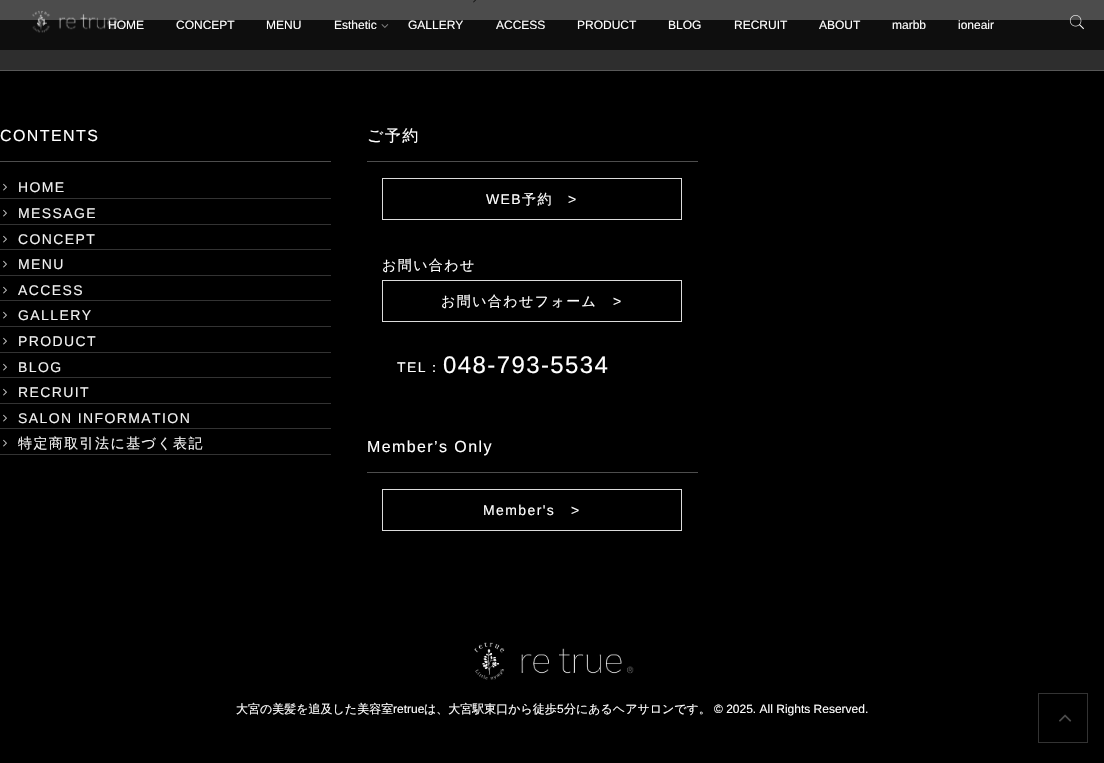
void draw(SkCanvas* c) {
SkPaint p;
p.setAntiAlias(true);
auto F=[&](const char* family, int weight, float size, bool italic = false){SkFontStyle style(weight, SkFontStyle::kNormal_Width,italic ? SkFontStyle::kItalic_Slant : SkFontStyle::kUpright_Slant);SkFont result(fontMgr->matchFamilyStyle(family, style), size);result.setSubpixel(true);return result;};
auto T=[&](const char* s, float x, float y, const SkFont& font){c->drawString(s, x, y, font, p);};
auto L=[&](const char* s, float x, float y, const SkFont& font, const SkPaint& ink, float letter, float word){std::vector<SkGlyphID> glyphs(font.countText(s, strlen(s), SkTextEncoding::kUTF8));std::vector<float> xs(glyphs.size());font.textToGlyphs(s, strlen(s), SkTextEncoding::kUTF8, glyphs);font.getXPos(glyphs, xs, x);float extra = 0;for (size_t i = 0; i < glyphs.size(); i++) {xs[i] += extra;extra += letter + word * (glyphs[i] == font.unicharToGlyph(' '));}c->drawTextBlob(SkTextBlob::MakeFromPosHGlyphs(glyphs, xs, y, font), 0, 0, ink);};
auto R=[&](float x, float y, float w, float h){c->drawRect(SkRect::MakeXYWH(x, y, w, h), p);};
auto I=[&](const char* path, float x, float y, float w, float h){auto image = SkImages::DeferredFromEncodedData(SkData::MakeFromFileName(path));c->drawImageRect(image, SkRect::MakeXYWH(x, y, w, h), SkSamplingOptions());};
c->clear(0xffffffff);
I("1.png",473,0,4,3);
p.setColor(0xff2e2e2e);
R(0,20,1104,50);
p.setColor(0xb3000000);
R(0,0,1104,50);
auto f1 = F("Liberation Sans",400,12);
p.setColor(0xffffffff);
T("HOME",108,29,f1);
I("2.png",32,10,92,23);
I("3.png",1069,15,15,15);
T("CONCEPT",176,29,f1);
T("MENU",266,29,f1);
T("Esthetic",334,29,f1);
I("4.png",381,24,8,4);
T("GALLERY",408,29,f1);
T("ACCESS",496,29,f1);
T("PRODUCT",577,29,f1);
T("BLOG",668,29,f1);
T("RECRUIT",734,29,f1);
T("ABOUT",819,29,f1);
T("marbb",892,29,f1);
T("ioneair",958,29,f1);
p.setColor(0xff000000);
R(0,71,1104,692);
p.setColor(0xff585858);
R(0,70,1104,1);
p.setColor(0xff4d4d4d);
R(0,161,331,1);
auto f2 = F("Liberation Sans",400,16);
p.setColor(0xffffffff);
L("CONTENTS",0,141,f2,p,1.4,0);
p.setColor(0xff333333);
R(0,198,331,1);
I("5.png",3,183,4,8);
auto f3 = F("Liberation Sans",400,14);
p.setColor(0xfff1f1f1);
L("HOME",18,192,f3,p,1.4,0);
p.setColor(0xff333333);
R(0,224,331,1);
I("5.png",3,209,4,8);
p.setColor(0xfff1f1f1);
L("MESSAGE",18,218,f3,p,1.4,0);
p.setColor(0xff333333);
R(0,249,331,1);
I("5.png",3,235,4,8);
p.setColor(0xfff1f1f1);
L("CONCEPT",18,244,f3,p,1.4,0);
p.setColor(0xff333333);
R(0,275,331,1);
I("5.png",3,260,4,8);
p.setColor(0xfff1f1f1);
L("MENU",18,269,f3,p,1.4,0);
p.setColor(0xff333333);
R(0,300,331,1);
I("5.png",3,286,4,8);
p.setColor(0xfff1f1f1);
L("ACCESS",18,295,f3,p,1.4,0);
p.setColor(0xff333333);
R(0,326,331,1);
I("5.png",3,311,4,8);
p.setColor(0xfff1f1f1);
L("GALLERY",18,320,f3,p,1.4,0);
p.setColor(0xff333333);
R(0,352,331,1);
I("5.png",3,337,4,8);
p.setColor(0xfff1f1f1);
L("PRODUCT",18,346,f3,p,1.4,0);
p.setColor(0xff333333);
R(0,377,331,1);
I("5.png",3,363,4,8);
p.setColor(0xfff1f1f1);
L("BLOG",18,372,f3,p,1.4,0);
p.setColor(0xff333333);
R(0,403,331,1);
I("5.png",3,388,4,8);
p.setColor(0xfff1f1f1);
L("RECRUIT",18,397,f3,p,1.4,0);
p.setColor(0xff333333);
R(0,428,331,1);
I("5.png",3,414,4,8);
p.setColor(0xfff1f1f1);
L("SALON INFORMATION",18,423,f3,p,1.4,0);
p.setColor(0xff333333);
R(0,454,331,1);
I("5.png",3,439,4,8);
auto f4 = F("WenQuanYi Zen Hei",500,14);
p.setColor(0xfff1f1f1);
L("特定商取引法に基づく表記",18,448,f4,p,1.4,0);
p.setColor(0xff4d4d4d);
R(367,161,331,1);
auto f5 = F("WenQuanYi Zen Hei",500,16);
p.setColor(0xffffffff);
L("ご予約",367,141,f5,p,1.4,0);
p.setStroke(true);
p.setStrokeWidth(1);
p.setColor(0xffdcdcdc);
c->drawRect(SkRect::MakeXYWH(382.5,178.5,299,41),p);
p.setStroke(false);
p.setColor(0xffffffff);
L("WEB",486,204,f3,p,1.4,0);
L("予約",522,204,f4,p,1.4,0);
L(">",568,204,f3,p,1.4,0);
L("お問い合わせ",382,270,f4,p,1.4,0);
p.setStroke(true);
p.setColor(0xffdcdcdc);
c->drawRect(SkRect::MakeXYWH(382.5,280.5,299,41),p);
p.setStroke(false);
p.setColor(0xffffffff);
L("お問い合わせフォーム",441,306,f4,p,1.4,0);
L(">",613,306,f3,p,1.4,0);
L("TEL",397,372,f3,p,1.4,0);
L("：",427,372,f4,p,1.4,0);
auto f6 = F("Liberation Sans",400,24);
L("048-793-5534",443,373,f6,p,1.4,0);
p.setColor(0xff4d4d4d);
R(367,472,331,1);
p.setColor(0xffffffff);
L("Member’s Only",367,452,f2,p,1.4,0);
p.setStroke(true);
p.setColor(0xffdcdcdc);
c->drawRect(SkRect::MakeXYWH(382.5,489.5,299,41),p);
p.setStroke(false);
p.setColor(0xffffffff);
L("Member's",483,515,f3,p,1.4,0);
L(">",571,515,f3,p,1.4,0);
I("6.png",474,642,160,38);
auto f7 = F("WenQuanYi Zen Hei",500,12);
T("大宮の美髪を追及した美容室",236,713,f7);
T("retrue",393,713,f1);
T("は、大宮駅東口から徒歩",424,713,f7);
T("5",557,713,f1);
T("分にあるヘアサロンです。",564,713,f7);
T("© 2025. All Rights Reserved.",714,713,f1);
p.setStroke(true);
p.setColor(0xff333333);
c->drawRect(SkRect::MakeXYWH(1038.5,693.5,49,49),p);
I("7.png",1059,714,13,8);
}
